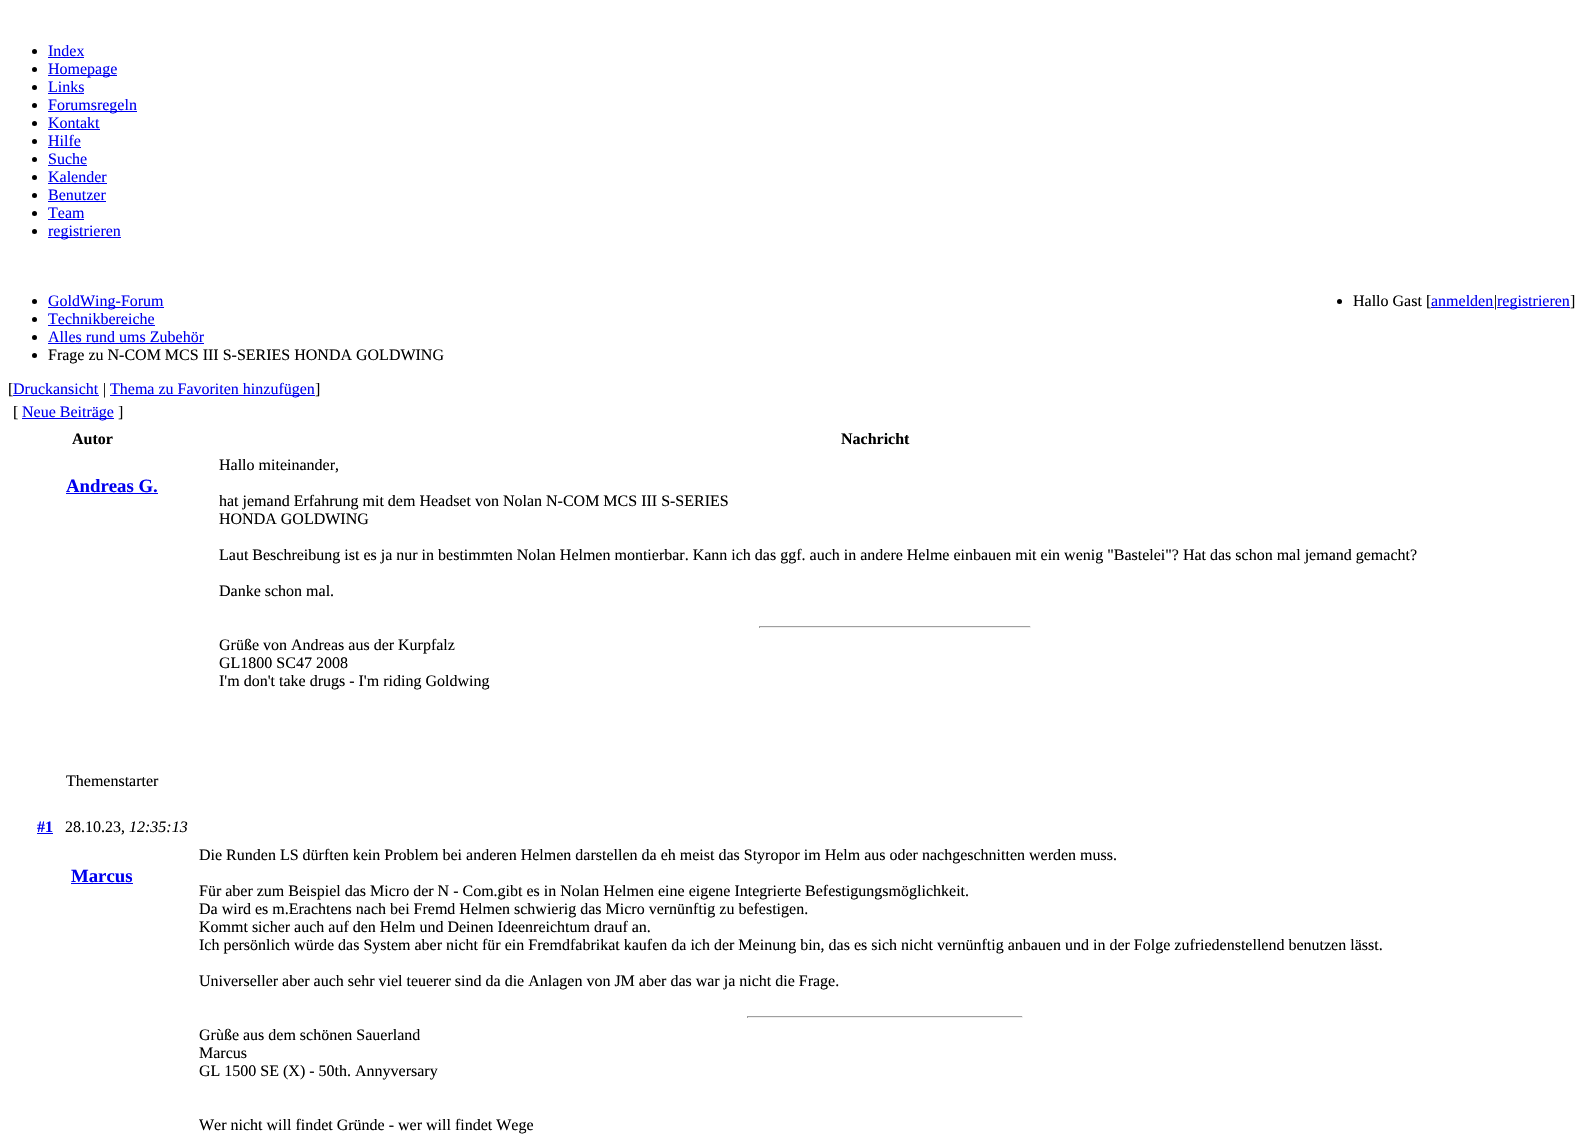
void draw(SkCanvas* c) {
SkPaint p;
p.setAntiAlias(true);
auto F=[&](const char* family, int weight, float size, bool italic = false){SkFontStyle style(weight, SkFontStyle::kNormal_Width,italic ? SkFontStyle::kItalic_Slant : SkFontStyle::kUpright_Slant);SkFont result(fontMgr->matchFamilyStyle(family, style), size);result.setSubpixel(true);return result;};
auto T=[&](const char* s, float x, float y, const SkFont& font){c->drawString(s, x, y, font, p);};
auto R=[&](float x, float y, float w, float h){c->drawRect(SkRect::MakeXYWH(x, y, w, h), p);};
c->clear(0xffffffff);
p.setColor(0xff000000);
c->drawCircle(34.5,51.5,2.5,p);
auto f1 = F("Liberation Serif",400,16);
p.setColor(0xff0000ee);
T("Index",48,56,f1);
R(48,57,36,1);
p.setColor(0xff000000);
c->drawCircle(34.5,69.5,2.5,p);
p.setColor(0xff0000ee);
R(48,75,69,1);
T("Homepage",48,74,f1);
p.setColor(0xff000000);
c->drawCircle(34.5,87.5,2.5,p);
p.setColor(0xff0000ee);
T("Links",48,92,f1);
R(48,93,36,1);
p.setColor(0xff000000);
c->drawCircle(34.5,105.5,2.5,p);
p.setColor(0xff0000ee);
R(48,111,89,1);
T("Forumsregeln",48,110,f1);
p.setColor(0xff000000);
c->drawCircle(34.5,123.5,2.5,p);
p.setColor(0xff0000ee);
T("Kontakt",48,128,f1);
R(48,129,52,1);
p.setColor(0xff000000);
c->drawCircle(34.5,141.5,2.5,p);
p.setColor(0xff0000ee);
T("Hilfe",48,146,f1);
R(48,147,33,1);
p.setColor(0xff000000);
c->drawCircle(34.5,159.5,2.5,p);
p.setColor(0xff0000ee);
T("Suche",48,164,f1);
R(48,165,39,1);
p.setColor(0xff000000);
c->drawCircle(34.5,177.5,2.5,p);
p.setColor(0xff0000ee);
T("Kalender",48,182,f1);
R(48,183,59,1);
p.setColor(0xff000000);
c->drawCircle(34.5,195.5,2.5,p);
p.setColor(0xff0000ee);
T("Benutzer",48,200,f1);
R(48,201,58,1);
p.setColor(0xff000000);
c->drawCircle(34.5,213.5,2.5,p);
p.setColor(0xff0000ee);
T("Team",48,218,f1);
R(48,219,36,1);
p.setColor(0xff000000);
c->drawCircle(34.5,231.5,2.5,p);
p.setColor(0xff0000ee);
R(48,237,73,1);
T("registrieren",48,236,f1);
p.setColor(0xff000000);
c->drawCircle(34.5,301.5,2.5,p);
p.setColor(0xff0000ee);
R(48,307,116,1);
T("GoldWing-Forum",48,306,f1);
p.setColor(0xff000000);
c->drawCircle(1339.5,301.5,2.5,p);
T("Hallo Gast [",1353,306,f1);
p.setColor(0xff0000ee);
T("anmelden",1431,306,f1);
R(1431,307,63,1);
p.setColor(0xff000000);
T("|",1494,306,f1);
p.setColor(0xff0000ee);
R(1497,307,73,1);
T("registrieren",1497,306,f1);
p.setColor(0xff000000);
T("]",1570,306,f1);
c->drawCircle(34.5,319.5,2.5,p);
p.setColor(0xff0000ee);
T("Technikbereiche",48,324,f1);
R(48,325,107,1);
p.setColor(0xff000000);
c->drawCircle(34.5,337.5,2.5,p);
p.setColor(0xff0000ee);
T("Alles rund ums Zubehör",48,342,f1);
R(48,343,156,1);
p.setColor(0xff000000);
c->drawCircle(34.5,355.5,2.5,p);
T("Frage zu N-COM MCS III S-SERIES HONDA GOLDWING",48,360,f1);
T("[",8,394,f1);
p.setColor(0xff0000ee);
T("Druckansicht",13,394,f1);
R(13,395,86,1);
p.setColor(0xff000000);
T("|",103,394,f1);
p.setColor(0xff0000ee);
R(110,395,205,1);
T("Thema zu Favoriten hinzufügen",110,394,f1);
p.setColor(0xff000000);
T("]",315,394,f1);
T("[",13,417,f1);
p.setColor(0xff0000ee);
R(22,418,92,1);
T("Neue Beiträge",22,417,f1);
p.setColor(0xff000000);
T("]",118,417,f1);
auto f2 = F("Liberation Serif",700,16);
T("Autor",72,444,f2);
T("Nachricht",841,444,f2);
auto f3 = F("Liberation Serif",700,18.75);
p.setColor(0xff0000ee);
T("Andreas G.",66,492,f3);
R(66,493,92,1);
p.setColor(0xff000000);
T("Themenstarter",66,786,f1);
T("Hallo miteinander,",219,470,f1);
T("hat jemand Erfahrung mit dem Headset von Nolan N-COM MCS III S-SERIES",219,506,f1);
T("HONDA GOLDWING",219,524,f1);
T("Laut Beschreibung ist es ja nur in bestimmten Nolan Helmen montierbar. Kann ich das ggf. auch in andere Helme einbauen mit ein wenig \"Bastelei\"? Hat das schon mal jemand gemacht?",219,560,f1);
T("Danke schon mal.",219,596,f1);
p.setColor(0xff9f9f9f);
R(759,626,272,1);
p.setColor(0xffeeeeee);
R(1030,626,1,2);
R(759,627,272,1);
p.setColor(0xff9f9f9f);
R(759,626,1,2);
p.setColor(0xff000000);
T("Grüße von Andreas aus der Kurpfalz",219,650,f1);
T("GL1800 SC47 2008",219,668,f1);
T("I'm don't take drugs - I'm riding Goldwing",219,686,f1);
p.setColor(0xff0000ee);
T("#1",37,832,f2);
R(37,833,16,1);
p.setColor(0xff000000);
T("28.10.23,",65,832,f1);
auto f4 = F("Liberation Serif",400,16,true);
T("12:35:13",129,832,f4);
p.setColor(0xff0000ee);
T("Marcus",71,882,f3);
R(71,883,62,1);
p.setColor(0xff000000);
T("Die Runden LS dürften kein Problem bei anderen Helmen darstellen da eh meist das Styropor im Helm aus oder nachgeschnitten werden muss.",199,860,f1);
T("Für aber zum Beispiel das Micro der N - Com.gibt es in Nolan Helmen eine eigene Integrierte Befestigungsmöglichkeit.",199,896,f1);
T("Da wird es m.Erachtens nach bei Fremd Helmen schwierig das Micro vernünftig zu befestigen.",199,914,f1);
T("Kommt sicher auch auf den Helm und Deinen Ideenreichtum drauf an.",199,932,f1);
T("Ich persönlich würde das System aber nicht für ein Fremdfabrikat kaufen da ich der Meinung bin, das es sich nicht vernünftig anbauen und in der Folge zufriedenstellend benutzen lässt.",199,950,f1);
T("Universeller aber auch sehr viel teuerer sind da die Anlagen von JM aber das war ja nicht die Frage.",199,986,f1);
p.setColor(0xff9f9f9f);
R(747,1016,276,1);
p.setColor(0xffeeeeee);
R(1022,1016,1,2);
R(747,1017,276,1);
p.setColor(0xff9f9f9f);
R(747,1016,1,2);
p.setColor(0xff000000);
T("Grùße aus dem schönen Sauerland",199,1040,f1);
T("Marcus",199,1058,f1);
T("GL 1500 SE (X) - 50th. Annyversary",199,1076,f1);
T("Wer nicht will findet Gründe - wer will findet Wege",199,1130,f1);
}
